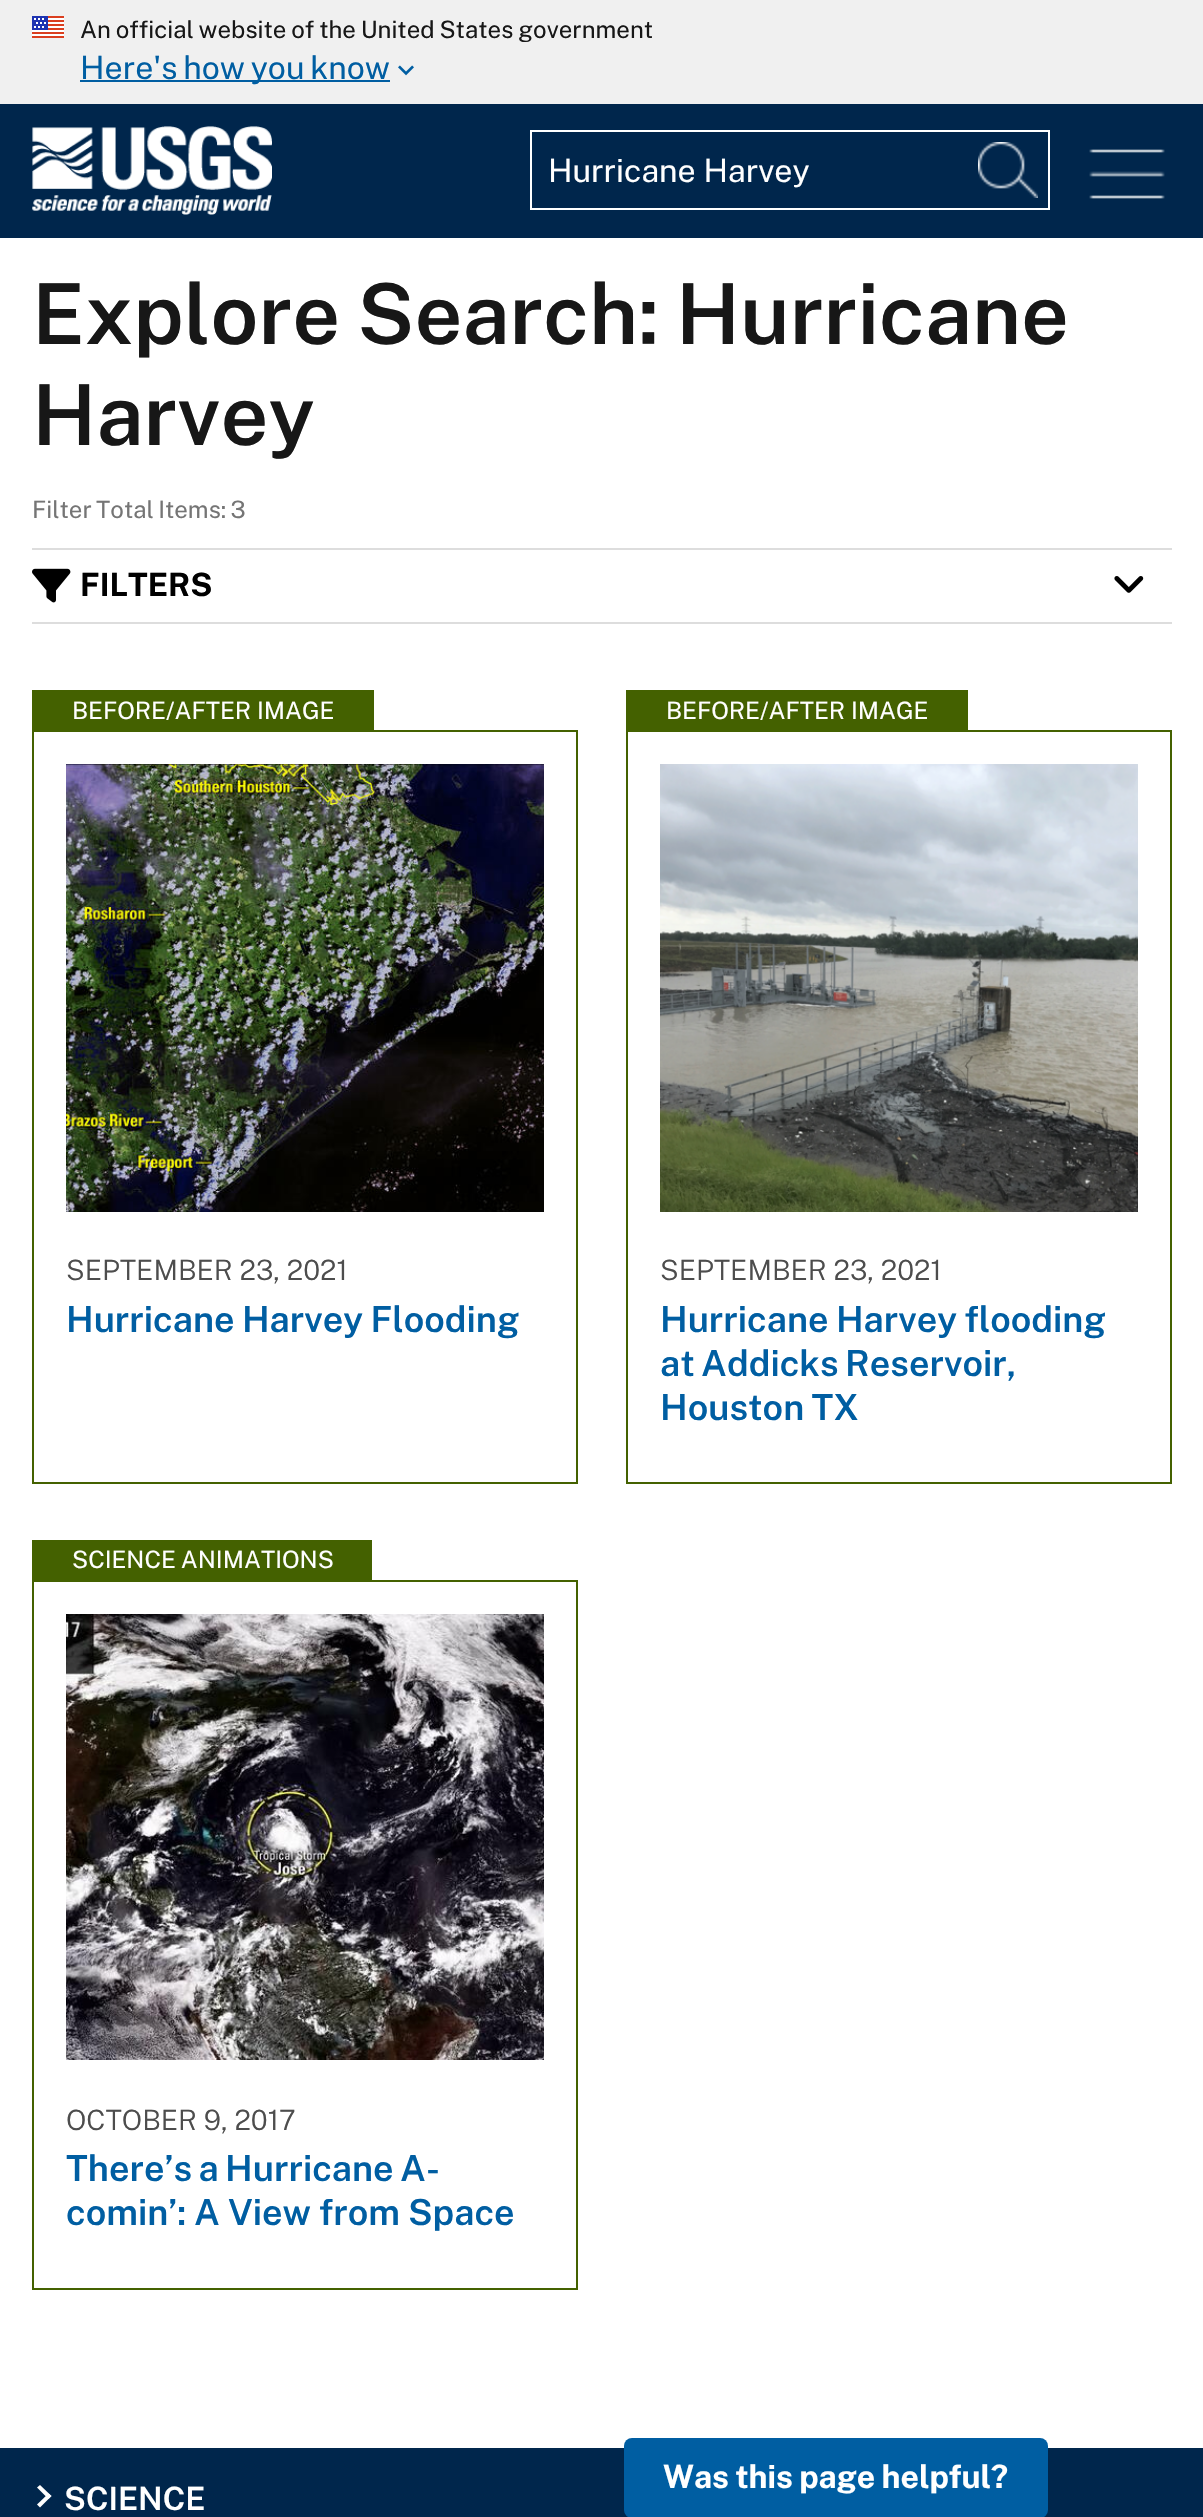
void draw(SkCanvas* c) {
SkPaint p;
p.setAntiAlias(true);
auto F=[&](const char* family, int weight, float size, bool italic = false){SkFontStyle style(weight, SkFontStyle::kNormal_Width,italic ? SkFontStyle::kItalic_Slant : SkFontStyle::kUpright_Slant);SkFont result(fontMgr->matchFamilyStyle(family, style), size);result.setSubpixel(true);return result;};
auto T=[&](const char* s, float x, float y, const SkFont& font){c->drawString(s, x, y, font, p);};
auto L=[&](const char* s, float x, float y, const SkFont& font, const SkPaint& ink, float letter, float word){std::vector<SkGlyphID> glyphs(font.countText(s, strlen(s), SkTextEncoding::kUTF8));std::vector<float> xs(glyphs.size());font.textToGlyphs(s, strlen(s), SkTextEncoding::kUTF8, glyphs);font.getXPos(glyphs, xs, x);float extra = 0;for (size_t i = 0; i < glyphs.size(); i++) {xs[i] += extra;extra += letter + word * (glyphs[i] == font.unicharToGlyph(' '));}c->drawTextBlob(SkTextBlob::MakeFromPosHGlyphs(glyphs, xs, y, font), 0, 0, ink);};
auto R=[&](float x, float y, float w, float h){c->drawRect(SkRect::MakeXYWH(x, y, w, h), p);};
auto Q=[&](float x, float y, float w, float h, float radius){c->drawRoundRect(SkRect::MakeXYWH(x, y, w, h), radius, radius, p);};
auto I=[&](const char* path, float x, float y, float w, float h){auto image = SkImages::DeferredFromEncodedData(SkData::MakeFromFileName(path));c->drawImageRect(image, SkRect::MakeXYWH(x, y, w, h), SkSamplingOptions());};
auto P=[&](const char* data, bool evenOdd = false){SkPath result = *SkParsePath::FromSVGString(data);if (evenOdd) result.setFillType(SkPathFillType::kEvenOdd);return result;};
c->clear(0xffffffff);
p.setColor(0xfff0f0f0);
R(0,0,1203,104);
I("1.png",32,16,32,22);
auto f1 = F("Public Sans",400,24);
p.setColor(0xff171717);
L("An official website of the United States government",80,38,f1,p,0,-1);
p.setColor(0xff005ea2);
R(80,80,310,2);
auto f2 = F("Public Sans",400,32);
L("Here's how you know",80,79,f2,p,0,-2);
I("2.png",398,65,16,11);
p.setColor(0xff00264c);
R(0,104,1203,134);
I("3.png",32,126,240,89);
p.setStroke(true);
p.setStrokeWidth(2);
p.setColor(0xffffffff);
c->drawRect(SkRect::MakeXYWH(531,131,518,78),p);
p.setStroke(false);
T("Hurricane Harvey",548,182,f2);
I("4.png",978,142,60,56);
I("5.png",1089,149,76,50);
auto f3 = F("Public Sans",600,84);
p.setColor(0xff171717);
L("Explore Search: Hurricane",32,344,f3,p,0,-3);
T("Harvey",32,445,f3);
p.setColor(0xff757575);
L("Filter Total Items: 3",32,518,f1,p,0,-1.5);
p.setColor(0xffdddddd);
R(32,548,1140,2);
R(32,622,1140,2);
I("6.png",32,568,39,35);
auto f4 = F("Public Sans",700,32);
p.setColor(0xff000000);
T("FILTERS",80,596,f4);
I("7.png",1114,576,30,17);
p.setColor(0xff446100);
R(32,690,342,40);
p.setColor(0xffffffff);
T("BEFORE/AFTER IMAGE",72,719,f1);
p.setStroke(true);
p.setColor(0xff446100);
c->drawRect(SkRect::MakeXYWH(33,731,544,752),p);
I("8.png",66,764,478,448);
auto f5 = F("Public Sans",300,28);
p.setStroke(false);
p.setColor(0xff4d4d4d);
T("SEPTEMBER 23, 2021",66,1280,f5);
auto f6 = F("Public Sans",600,36);
p.setColor(0xff005ea2);
L("Hurricane Harvey Flooding",66,1332,f6,p,0,-1);
p.setColor(0xff446100);
R(626,690,342,40);
p.setColor(0xffffffff);
T("BEFORE/AFTER IMAGE",666,719,f1);
p.setStroke(true);
p.setColor(0xff446100);
c->drawRect(SkRect::MakeXYWH(627,731,544,752),p);
I("9.png",660,764,478,448);
p.setStroke(false);
p.setColor(0xff4d4d4d);
T("SEPTEMBER 23, 2021",660,1280,f5);
p.setColor(0xff005ea2);
L("Hurricane Harvey flooding",660,1332,f6,p,0,-1);
L("at Addicks Reservoir,",660,1376,f6,p,0,-2);
L("Houston TX",660,1420,f6,p,0,-1);
p.setColor(0xff446100);
R(32,1540,340,40);
p.setColor(0xffffffff);
L("SCIENCE ANIMATIONS",72,1568,f1,p,0,-1);
p.setStroke(true);
p.setColor(0xff446100);
c->drawRect(SkRect::MakeXYWH(33,1581,544,708),p);
I("10.png",66,1614,478,446);
p.setStroke(false);
p.setColor(0xff4d4d4d);
T("OCTOBER 9, 2017",66,2130,f5);
p.setColor(0xff005ea2);
L("There’s a Hurricane A-",66,2181,f6,p,0,-2);
L("comin’: A View from Space",66,2225,f6,p,0,-.5);
p.setColor(0xff00264c);
R(0,2448,1203,69);
p.setColor(0xffffffff);
c->drawPath(P("M37 2487.5l3-2.5l11.5 11l-3 3z"),p);
c->drawPath(P("M37 2504.5l11.5-11l3 2.5l-11.5 11.5z"),p);
auto f7 = F("Public Sans",600,32);
T("SCIENCE",64,2510,f7);
p.setColor(0xff005ea2);
Q(624,2438,424,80,8);
p.setColor(0xffffffff);
L("Was this page helpful?",663,2488,f4,p,0,-1);
}
